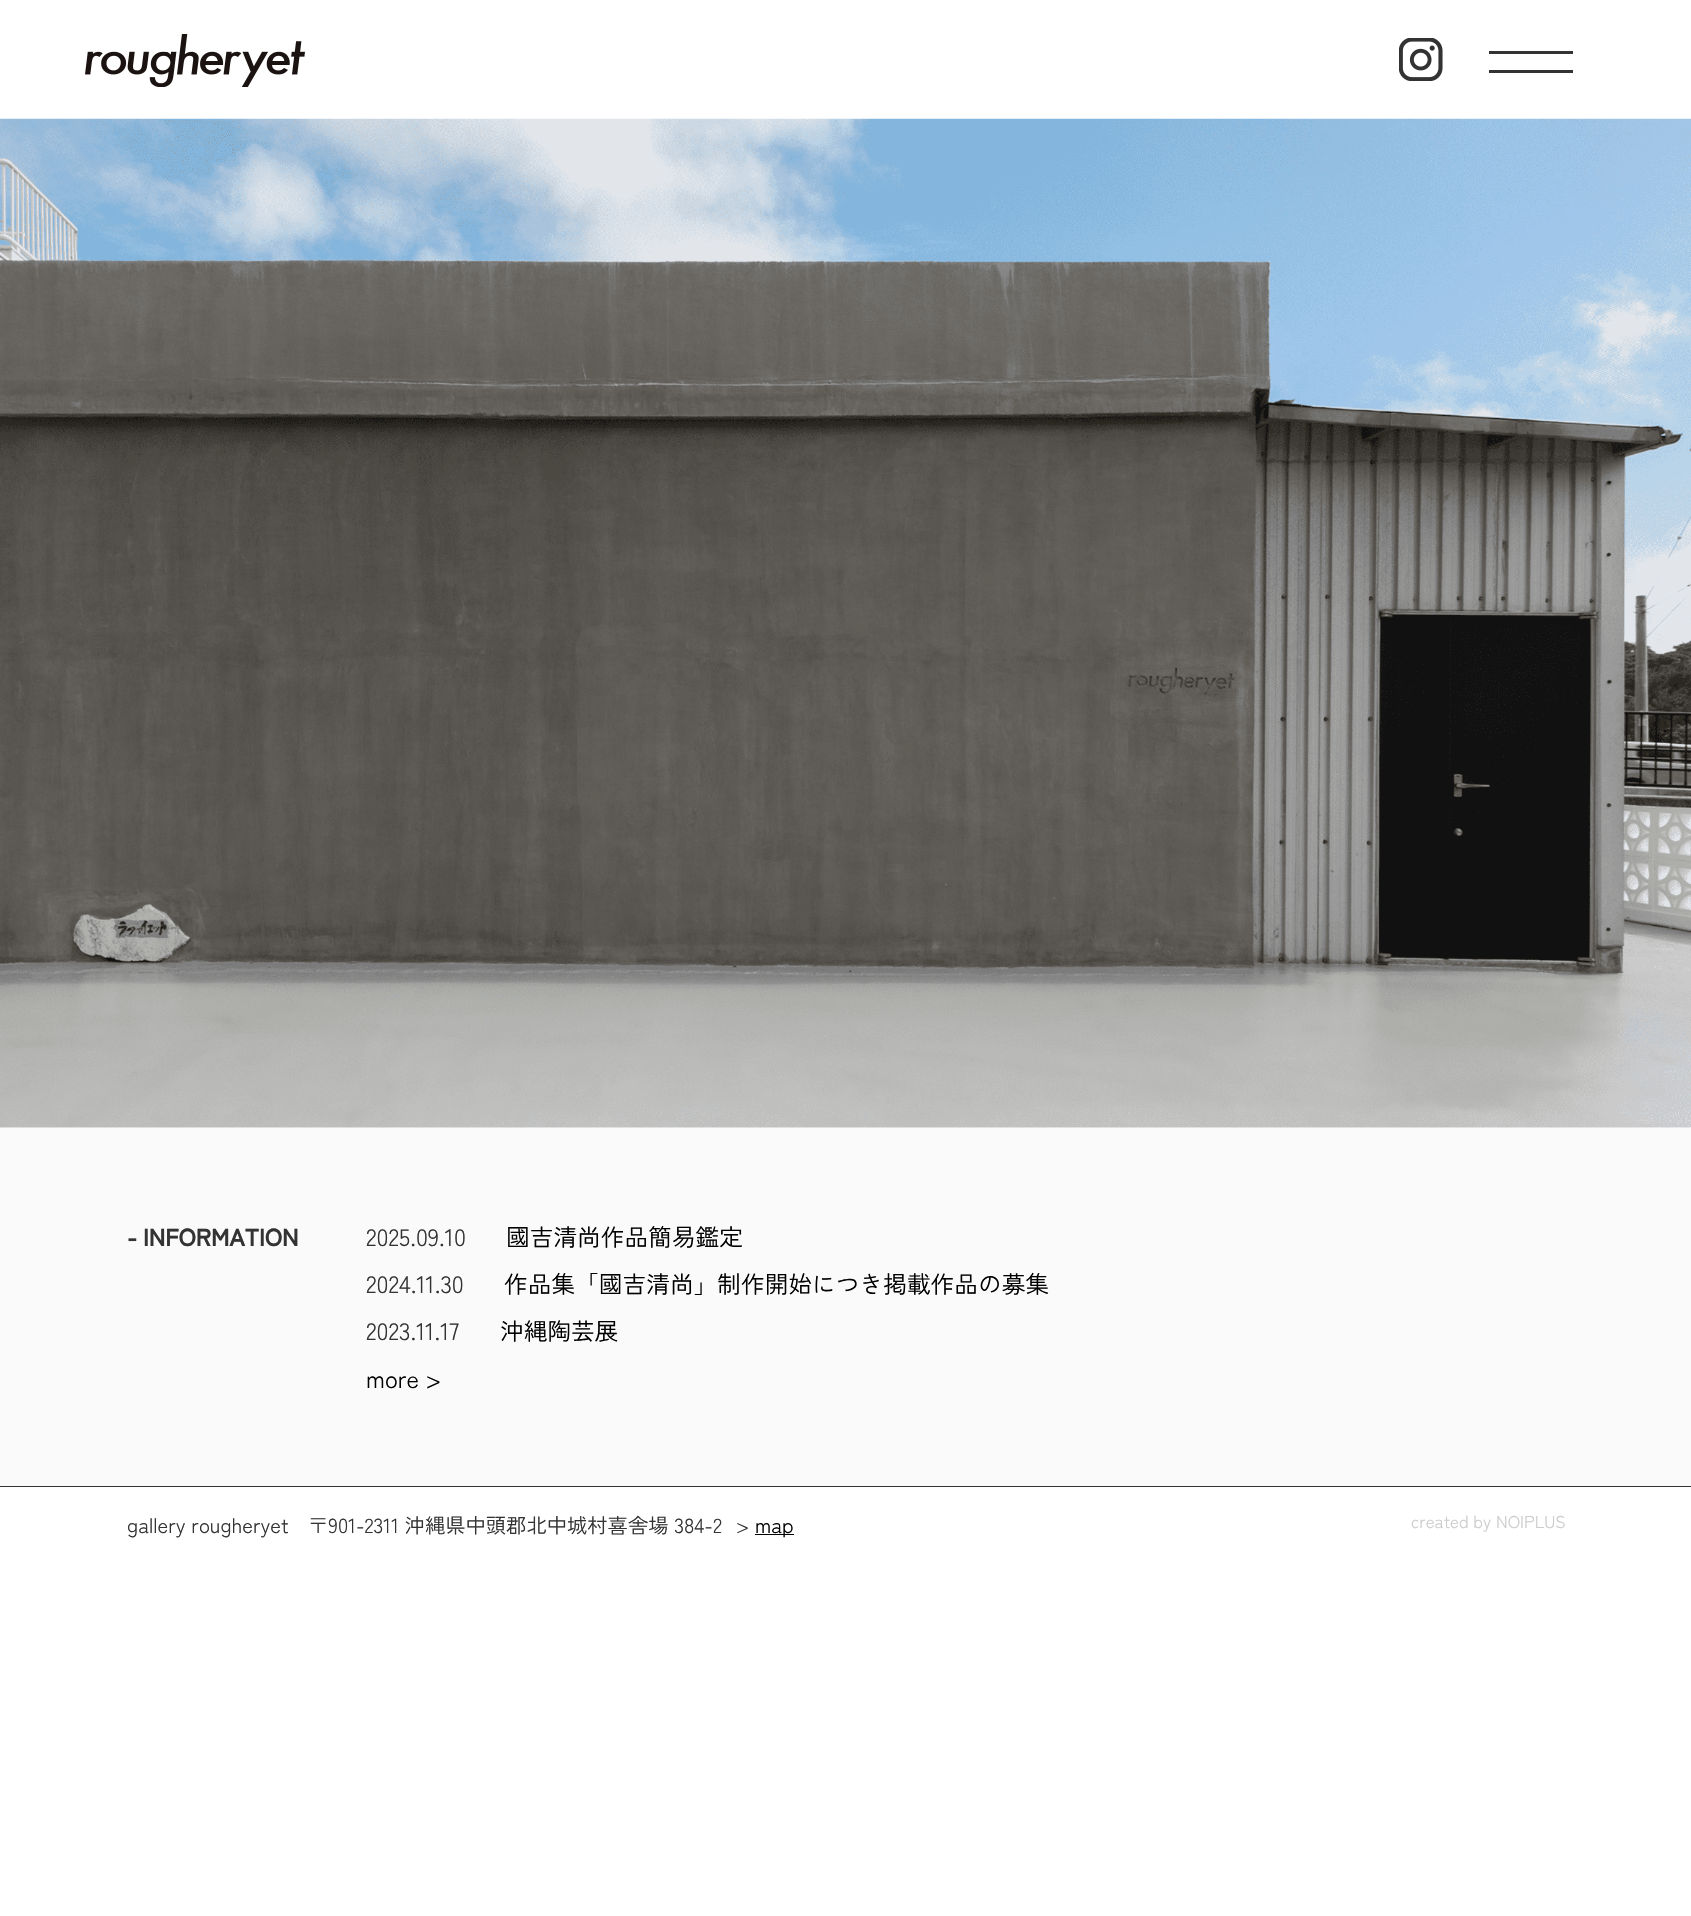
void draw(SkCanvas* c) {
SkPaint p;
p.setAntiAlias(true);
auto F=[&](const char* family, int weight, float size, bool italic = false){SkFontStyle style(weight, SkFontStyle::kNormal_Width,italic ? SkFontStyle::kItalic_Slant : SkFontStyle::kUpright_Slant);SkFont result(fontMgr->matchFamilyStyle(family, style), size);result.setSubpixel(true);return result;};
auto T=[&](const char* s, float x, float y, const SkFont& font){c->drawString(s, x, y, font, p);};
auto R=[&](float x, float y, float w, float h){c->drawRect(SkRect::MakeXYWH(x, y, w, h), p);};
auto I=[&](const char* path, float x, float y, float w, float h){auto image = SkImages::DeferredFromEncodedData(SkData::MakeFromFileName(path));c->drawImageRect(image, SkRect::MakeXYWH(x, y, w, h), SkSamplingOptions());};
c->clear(0xffffffff);
I("1.png",85,34,220,53);
I("2.png",1399,38,44,43);
p.setColor(0xff333333);
R(1489,51,84,3);
R(1489,70,84,3);
I("3.png",0,118,1691,1010);
p.setColor(0xfffafafa);
R(0,1128,1691,358);
auto f1 = F("Zen Kaku Gothic New",700,23.7);
p.setColor(0xff333333);
T("-",127,1246,f1);
T("INFORMATION",143,1246,f1);
auto f2 = F("Zen Kaku Gothic New",400,23.7);
T("2025.09.10",366,1246,f2);
p.setColor(0xff000000);
T("國吉清尚作品簡易鑑定",506,1246,f2);
p.setColor(0xff333333);
T("2024.11.30",366,1293,f2);
p.setColor(0xff000000);
T("作品集「國吉清尚」制作開始につき掲載作品の募集",504,1293,f2);
p.setColor(0xff333333);
T("2023.11.17",366,1340,f2);
p.setColor(0xff000000);
T("沖縄陶芸展",500,1340,f2);
T("more >",366,1388,f2);
p.setColor(0xff333333);
R(0,1486,1691,1);
auto f3 = F("Zen Kaku Gothic New",400,20.3);
T("gallery rougheryet",127,1533,f3);
T("〒901-2311 沖縄県中頭郡北中城村喜舎場 384-2",308,1533,f3);
T(">",736,1533,f3);
p.setColor(0xff000000);
R(755,1534,39,1);
T("map",755,1533,f3);
auto f4 = F("Zen Kaku Gothic New",400,17);
p.setColor(0xffcccccc);
T("created by NOIPLUS",1411,1528,f4);
}
